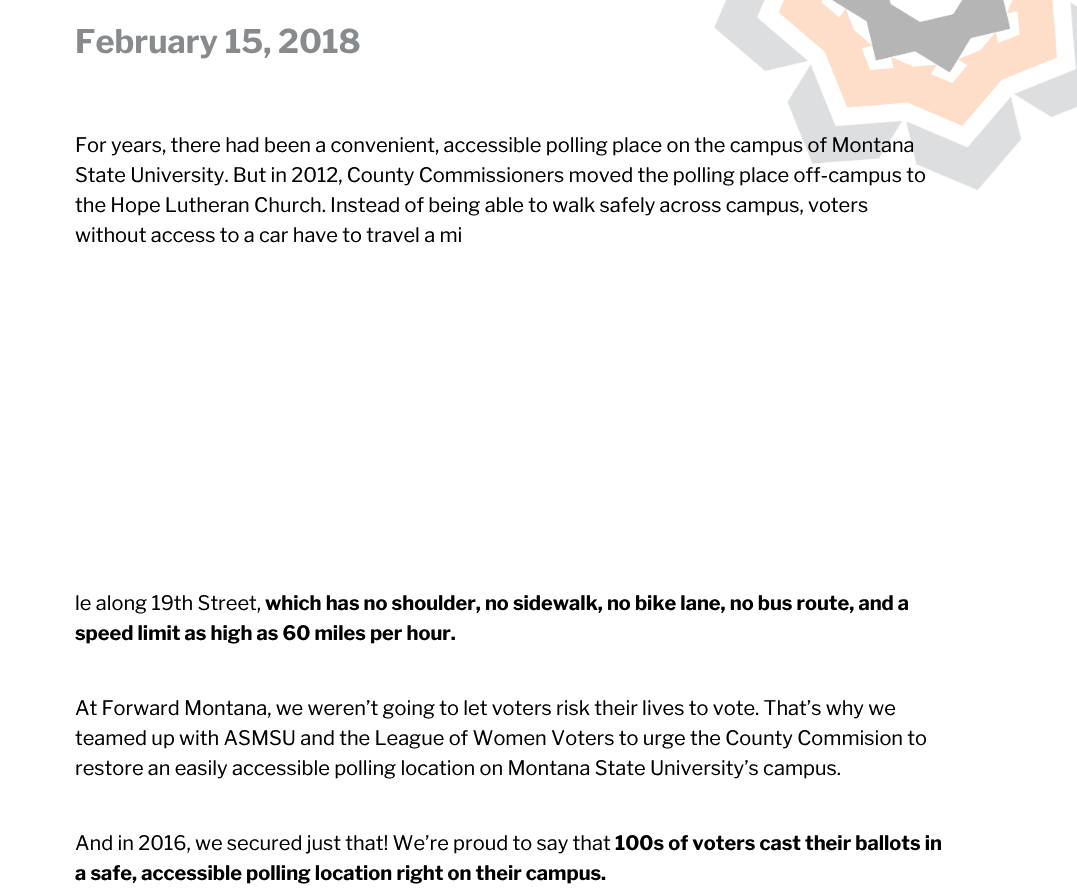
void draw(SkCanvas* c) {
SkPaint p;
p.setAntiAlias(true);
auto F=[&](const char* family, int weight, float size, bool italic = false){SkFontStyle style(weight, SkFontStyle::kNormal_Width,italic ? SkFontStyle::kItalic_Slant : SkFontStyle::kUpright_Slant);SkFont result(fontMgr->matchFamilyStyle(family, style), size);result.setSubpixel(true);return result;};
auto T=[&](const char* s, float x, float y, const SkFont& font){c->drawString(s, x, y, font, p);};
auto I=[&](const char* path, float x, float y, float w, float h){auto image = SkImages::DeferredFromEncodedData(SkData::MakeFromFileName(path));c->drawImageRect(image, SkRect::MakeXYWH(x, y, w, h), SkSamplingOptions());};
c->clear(0xffffffff);
I("1.png",714,0,363,190);
auto f1 = F("Libre Franklin",700,32.5);
p.setColor(0xff888b8d);
T("February 15, 2018",75,53,f1);
auto f2 = F("Libre Franklin",400,20);
p.setColor(0xff000000);
T("For years, there had been a convenient, accessible polling place on the campus of Montana",75,152,f2);
T("State University. But in 2012, County Commissioners moved the polling place off-campus to",75,182,f2);
T("the Hope Lutheran Church. Instead of being able to walk safely across campus, voters",75,212,f2);
T("without access to a car have to travel a mi",75,242,f2);
T("le along 19th Street,",75,610,f2);
auto f3 = F("Libre Franklin",700,20);
T("which has no shoulder, no sidewalk, no bike lane, no bus route, and a",265,610,f3);
T("speed limit as high as 60 miles per hour.",75,640,f3);
T("At Forward Montana, we weren’t going to let voters risk their lives to vote. That’s why we",75,715,f2);
T("teamed up with ASMSU and the League of Women Voters to urge the County Commision to",75,745,f2);
T("restore an easily accessible polling location on Montana State University’s campus.",75,775,f2);
T("And in 2016, we secured just that! We’re proud to say that",75,850,f2);
T("100s of voters cast their ballots in",615,850,f3);
T("a safe, accessible polling location right on their campus.",75,880,f3);
}
